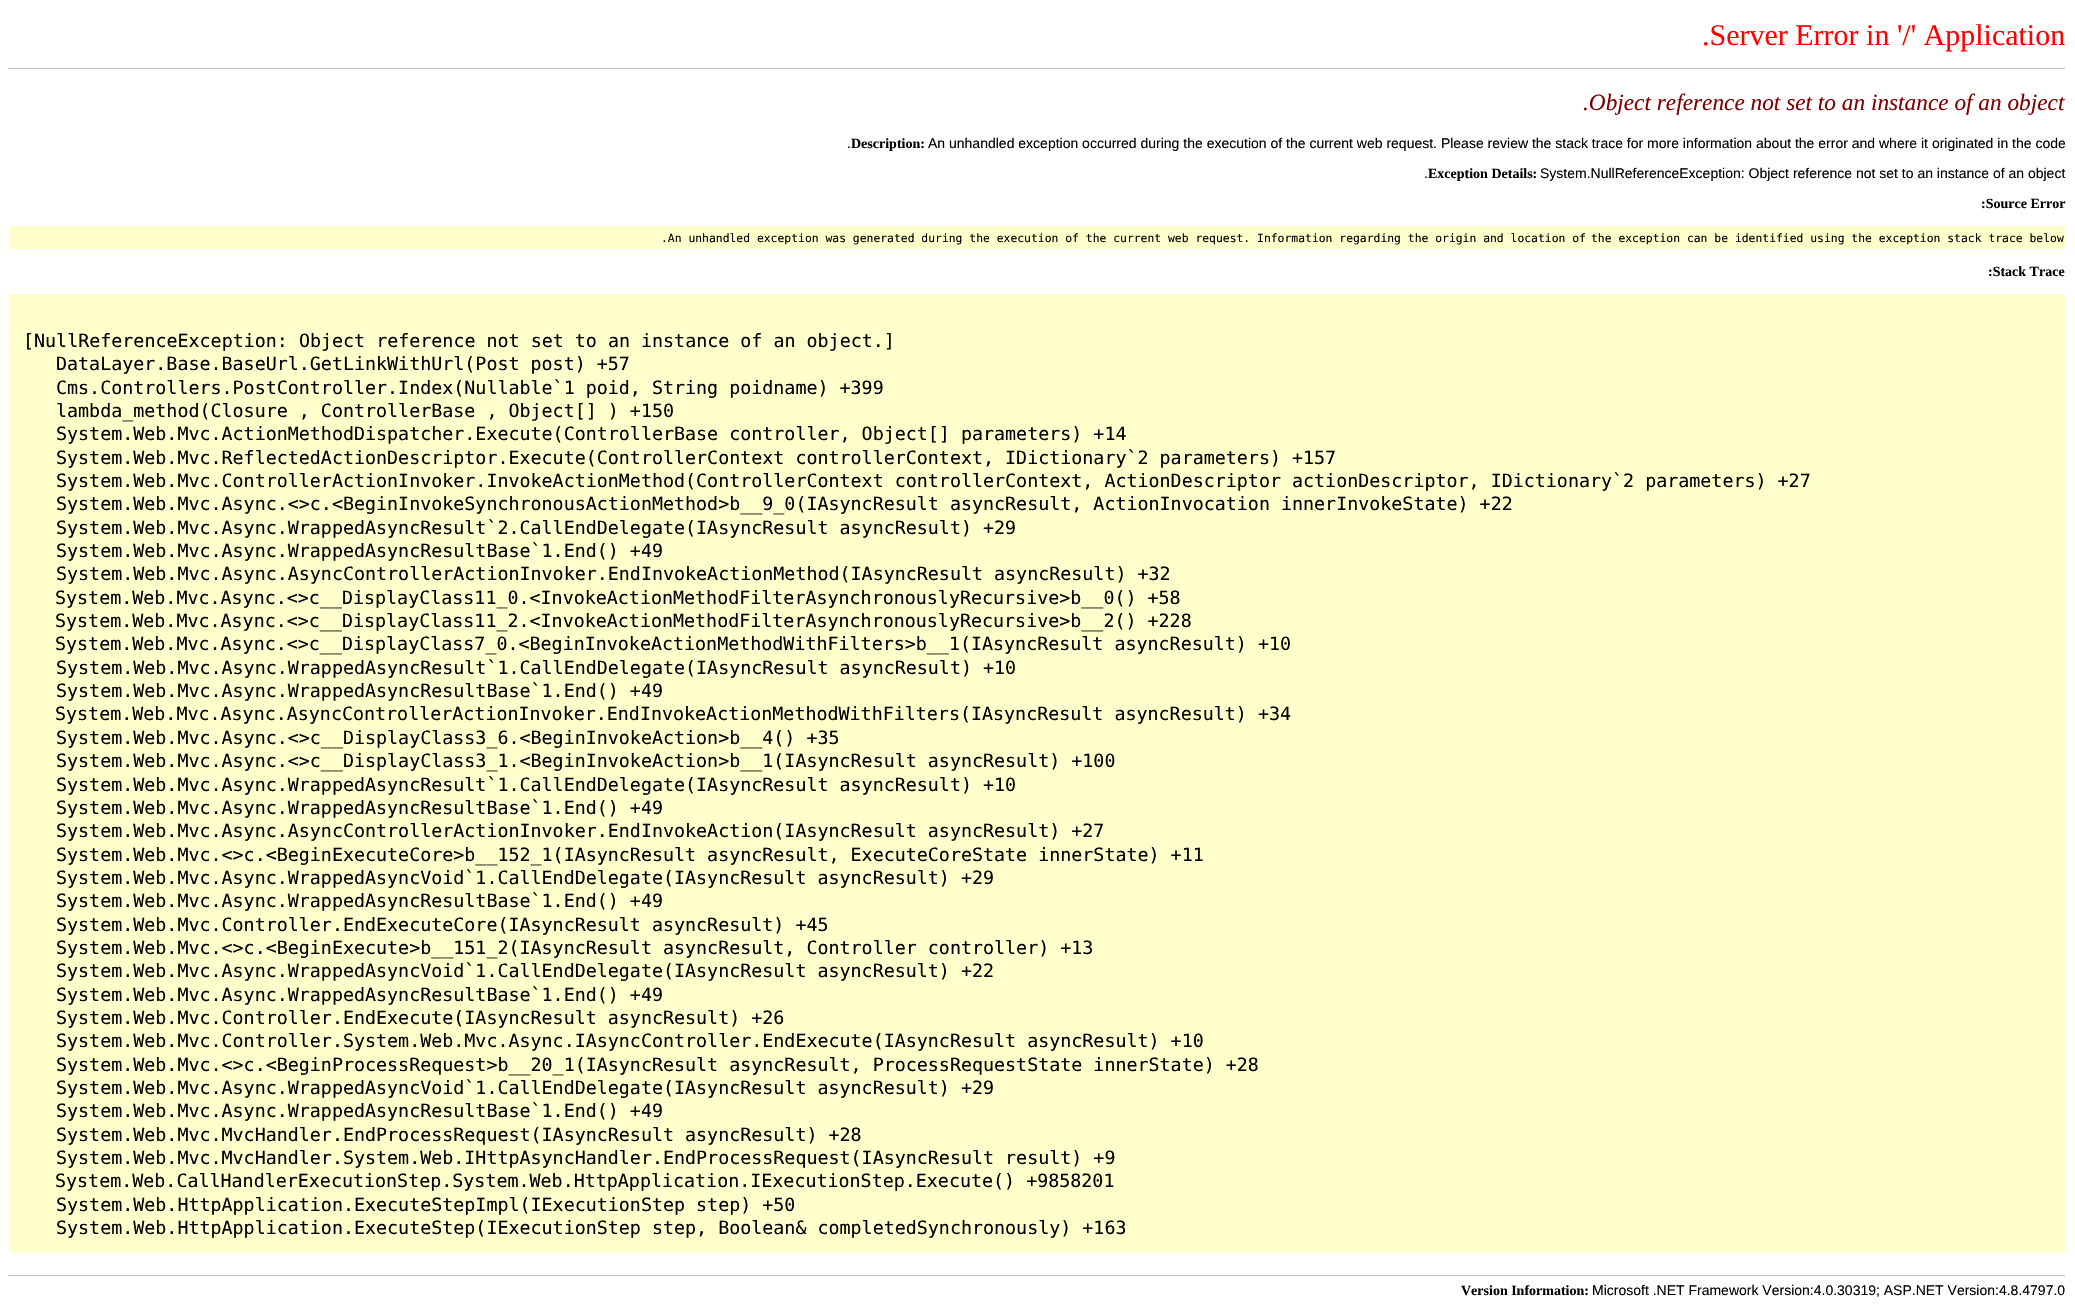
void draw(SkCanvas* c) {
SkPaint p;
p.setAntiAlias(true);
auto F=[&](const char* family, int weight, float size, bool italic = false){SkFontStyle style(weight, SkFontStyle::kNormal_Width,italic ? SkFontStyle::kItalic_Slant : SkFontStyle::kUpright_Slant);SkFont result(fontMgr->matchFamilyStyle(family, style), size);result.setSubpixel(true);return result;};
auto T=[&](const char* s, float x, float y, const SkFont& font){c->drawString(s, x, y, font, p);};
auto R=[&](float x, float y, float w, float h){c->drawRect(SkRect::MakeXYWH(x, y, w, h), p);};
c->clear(0xffffffff);
auto f1 = F("Liberation Serif",400,30);
p.setColor(0xffff0000);
T(".Server Error in '/' Application",1702,45,f1);
p.setColor(0xffc0c0c0);
R(8,68,2057,1);
auto f2 = F("Liberation Serif",400,23.3,true);
p.setColor(0xff800000);
T(".Object reference not set to an instance of an object",1583,110,f2);
auto f3 = F("Liberation Sans",400,14);
p.setColor(0xff000000);
T(".",847,148,f3);
auto f4 = F("Liberation Serif",700,14);
T("Description:",851,148,f4);
T("An unhandled exception occurred during the execution of the current web request. Please review the stack trace for more information about the error and where it originated in the code",928,148,f3);
T(".",1424,178,f3);
T("Exception Details:",1428,178,f4);
T("System.NullReferenceException: Object reference not set to an instance of an object",1540,178,f3);
T(":Source Error",1981,208,f4);
p.setColor(0xffffffcc);
R(10,226,2055,23);
auto f5 = F("DejaVu Sans Mono",400,11.38);
p.setColor(0xff000000);
T(".An unhandled exception was generated during the execution of the current web request. Information regarding the origin and location of",661,242,f5);
T("the exception can be identified using the exception stack trace below",1591,242,f5);
T(":Stack Trace",1988,276,f4);
p.setColor(0xffffffcc);
R(10,294,2055,959);
auto f6 = F("DejaVu Sans Mono",400,18.33);
p.setColor(0xff000000);
T("[NullReferenceException: Object reference not set to an instance of an object.]",23,347,f6);
T("DataLayer.Base.BaseUrl.GetLinkWithUrl(Post post) +57",56,370,f6);
T("Cms.Controllers.PostController.Index(Nullable`1 poid, String poidname) +399",56,394,f6);
T("lambda_method(Closure , ControllerBase , Object[] ) +150",56,417,f6);
T("System.Web.Mvc.ActionMethodDispatcher.Execute(ControllerBase controller, Object[] parameters) +14",56,440,f6);
T("System.Web.Mvc.ReflectedActionDescriptor.Execute(ControllerContext controllerContext, IDictionary`2 parameters) +157",56,464,f6);
T("System.Web.Mvc.ControllerActionInvoker.InvokeActionMethod(ControllerContext controllerContext, ActionDescriptor actionDescriptor, IDictionary`2 parameters) +27",56,487,f6);
T("System.Web.Mvc.Async.<>c.<BeginInvokeSynchronousActionMethod>b__9_0(IAsyncResult asyncResult, ActionInvocation innerInvokeState) +22",56,510,f6);
T("System.Web.Mvc.Async.WrappedAsyncResult`2.CallEndDelegate(IAsyncResult asyncResult) +29",56,534,f6);
T("System.Web.Mvc.Async.WrappedAsyncResultBase`1.End() +49",56,557,f6);
T("System.Web.Mvc.Async.AsyncControllerActionInvoker.EndInvokeActionMethod(IAsyncResult asyncResult) +32",56,580,f6);
T("System.Web.Mvc.Async.<>c__DisplayClass11_0.<InvokeActionMethodFilterAsynchronouslyRecursive>b__0() +58",55,604,f6);
T("System.Web.Mvc.Async.<>c__DisplayClass11_2.<InvokeActionMethodFilterAsynchronouslyRecursive>b__2() +228",55,627,f6);
T("System.Web.Mvc.Async.<>c__DisplayClass7_0.<BeginInvokeActionMethodWithFilters>b__1(IAsyncResult asyncResult) +10",55,650,f6);
T("System.Web.Mvc.Async.WrappedAsyncResult`1.CallEndDelegate(IAsyncResult asyncResult) +10",56,674,f6);
T("System.Web.Mvc.Async.WrappedAsyncResultBase`1.End() +49",56,697,f6);
T("System.Web.Mvc.Async.AsyncControllerActionInvoker.EndInvokeActionMethodWithFilters(IAsyncResult asyncResult) +34",55,720,f6);
T("System.Web.Mvc.Async.<>c__DisplayClass3_6.<BeginInvokeAction>b__4() +35",56,744,f6);
T("System.Web.Mvc.Async.<>c__DisplayClass3_1.<BeginInvokeAction>b__1(IAsyncResult asyncResult) +100",56,767,f6);
T("System.Web.Mvc.Async.WrappedAsyncResult`1.CallEndDelegate(IAsyncResult asyncResult) +10",56,791,f6);
T("System.Web.Mvc.Async.WrappedAsyncResultBase`1.End() +49",56,814,f6);
T("System.Web.Mvc.Async.AsyncControllerActionInvoker.EndInvokeAction(IAsyncResult asyncResult) +27",56,837,f6);
T("System.Web.Mvc.<>c.<BeginExecuteCore>b__152_1(IAsyncResult asyncResult, ExecuteCoreState innerState) +11",56,861,f6);
T("System.Web.Mvc.Async.WrappedAsyncVoid`1.CallEndDelegate(IAsyncResult asyncResult) +29",56,884,f6);
T("System.Web.Mvc.Async.WrappedAsyncResultBase`1.End() +49",56,907,f6);
T("System.Web.Mvc.Controller.EndExecuteCore(IAsyncResult asyncResult) +45",56,931,f6);
T("System.Web.Mvc.<>c.<BeginExecute>b__151_2(IAsyncResult asyncResult, Controller controller) +13",56,954,f6);
T("System.Web.Mvc.Async.WrappedAsyncVoid`1.CallEndDelegate(IAsyncResult asyncResult) +22",56,977,f6);
T("System.Web.Mvc.Async.WrappedAsyncResultBase`1.End() +49",56,1001,f6);
T("System.Web.Mvc.Controller.EndExecute(IAsyncResult asyncResult) +26",56,1024,f6);
T("System.Web.Mvc.Controller.System.Web.Mvc.Async.IAsyncController.EndExecute(IAsyncResult asyncResult) +10",56,1047,f6);
T("System.Web.Mvc.<>c.<BeginProcessRequest>b__20_1(IAsyncResult asyncResult, ProcessRequestState innerState) +28",56,1071,f6);
T("System.Web.Mvc.Async.WrappedAsyncVoid`1.CallEndDelegate(IAsyncResult asyncResult) +29",56,1094,f6);
T("System.Web.Mvc.Async.WrappedAsyncResultBase`1.End() +49",56,1117,f6);
T("System.Web.Mvc.MvcHandler.EndProcessRequest(IAsyncResult asyncResult) +28",56,1141,f6);
T("System.Web.Mvc.MvcHandler.System.Web.IHttpAsyncHandler.EndProcessRequest(IAsyncResult result) +9",56,1164,f6);
T("System.Web.CallHandlerExecutionStep.System.Web.HttpApplication.IExecutionStep.Execute() +9858201",55,1187,f6);
T("System.Web.HttpApplication.ExecuteStepImpl(IExecutionStep step) +50",56,1211,f6);
T("System.Web.HttpApplication.ExecuteStep(IExecutionStep step, Boolean& completedSynchronously) +163",56,1234,f6);
p.setColor(0xffc0c0c0);
R(8,1275,2057,1);
p.setColor(0xff000000);
T("Version Information:",1461,1295,f4);
T("Microsoft .NET Framework Version:4.0.30319; ASP.NET Version:4.8.4797.0",1592,1295,f3);
}
